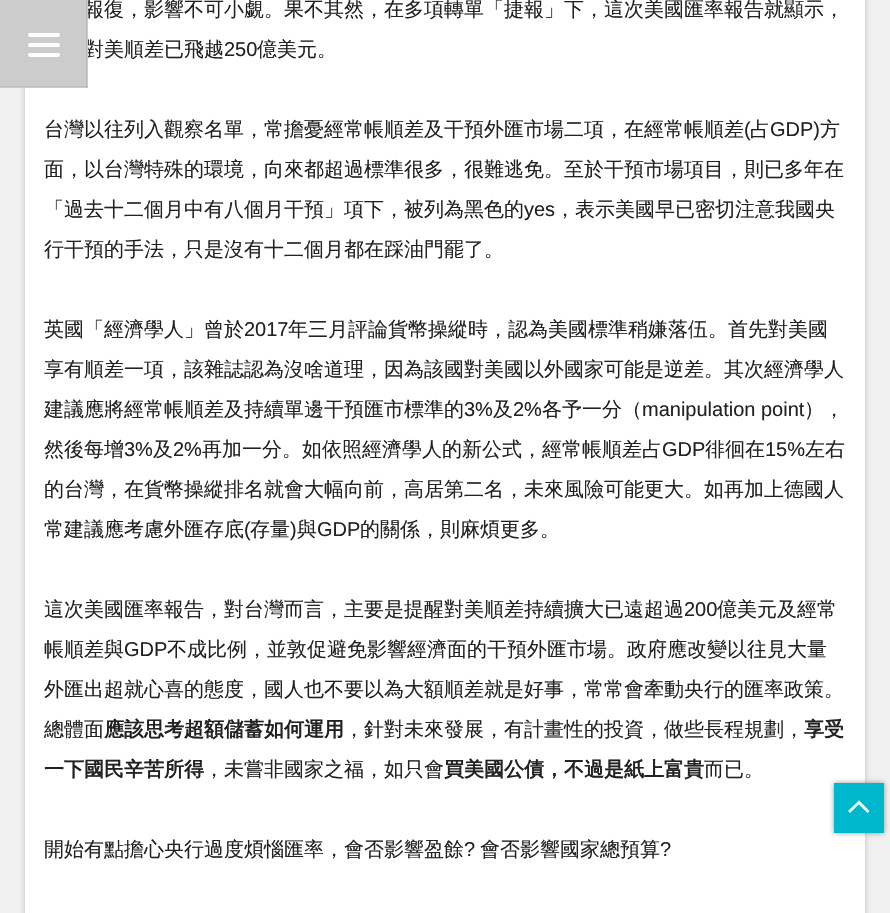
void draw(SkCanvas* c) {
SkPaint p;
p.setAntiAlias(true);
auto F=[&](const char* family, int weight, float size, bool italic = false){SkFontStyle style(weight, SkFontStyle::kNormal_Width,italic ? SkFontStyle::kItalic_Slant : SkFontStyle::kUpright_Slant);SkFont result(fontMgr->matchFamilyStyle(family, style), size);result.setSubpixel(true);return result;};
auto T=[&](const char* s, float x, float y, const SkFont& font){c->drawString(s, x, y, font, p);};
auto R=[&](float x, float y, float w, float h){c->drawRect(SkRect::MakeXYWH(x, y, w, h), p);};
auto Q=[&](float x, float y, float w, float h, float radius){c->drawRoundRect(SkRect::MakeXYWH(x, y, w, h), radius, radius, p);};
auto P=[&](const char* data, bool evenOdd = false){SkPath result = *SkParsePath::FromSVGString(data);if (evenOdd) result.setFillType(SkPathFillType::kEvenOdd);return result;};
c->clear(0xfff1f1f1);
p.setColor(0x33000000);
p.setMaskFilter(SkMaskFilter::MakeBlur(kNormal_SkBlurStyle, 3));
c->drawRect(SkRect::MakeXYWH(25,-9,840,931),p);
p.setMaskFilter(nullptr);
p.setColor(0xffffffff);
R(25,0,840,913);
auto f1 = F("WenQuanYi Zen Hei",500,20);
p.setColor(0xff222222);
T("報復，影響不可小覷。果不其然，在多項轉單「捷報」下，這次美國匯率報告就顯示，",84,16,f1);
T("對美順差已飛越",84,56,f1);
p.setColor(0xffcccccc);
R(0,0,88,88);
p.setColor(0xffbbbbbb);
R(86,0,1,88);
R(0,86,88,1);
p.setColor(0xffffffff);
Q(28,33,32,4,2);
Q(28,43,32,4,2);
Q(28,53,32,4,2);
auto f2 = F("Liberation Sans",400,20);
p.setColor(0xff222222);
T("250",224,56,f2);
T("億美元。",257,56,f1);
T("台灣以往列入觀察名單，常擔憂經常帳順差及干預外匯市場二項，在經常帳順差",44,136,f1);
T("(",744,136,f2);
T("占",750,136,f1);
T("GDP)",770,136,f2);
T("方",820,136,f1);
T("面，以台灣特殊的環境，向來都超過標準很多，很難逃免。至於干預市場項目，則已多年在",44,176,f1);
T("「過去十二個月中有八個月干預」項下，被列為黑色的",44,216,f1);
T("yes",524,216,f2);
T("，表示美國早已密切注意我國央",555,216,f1);
T("行干預的手法，只是沒有十二個月都在踩油門罷了。",44,256,f1);
T("英國「經濟學人」曾於",44,336,f1);
T("2017",244,336,f2);
T("年三月評論貨幣操縱時，認為美國標準稍嫌落伍。首先對美國",288,336,f1);
T("享有順差一項，該雜誌認為沒啥道理，因為該國對美國以外國家可能是逆差。其次經濟學人",44,376,f1);
T("建議應將經常帳順差及持續單邊干預匯市標準的",44,416,f1);
T("3%",464,416,f2);
T("及",493,416,f1);
T("2%",513,416,f2);
T("各予一分（",542,416,f1);
T("manipulation point",642,416,f2);
T("），",804,416,f1);
T("然後每增",44,456,f1);
T("3%",124,456,f2);
T("及",153,456,f1);
T("2%",173,456,f2);
T("再加一分。如依照經濟學人的新公式，經常帳順差占",202,456,f1);
T("GDP",662,456,f2);
T("徘徊在",705,456,f1);
T("15%",765,456,f2);
T("左右",805,456,f1);
T("的台灣，在貨幣操縱排名就會大幅向前，高居第二名，未來風險可能更大。如再加上德國人",44,496,f1);
T("常建議應考慮外匯存底",44,536,f1);
T("(",244,536,f2);
T("存量",250,536,f1);
T(")",290,536,f2);
T("與",297,536,f1);
T("GDP",317,536,f2);
T("的關係，則麻煩更多。",360,536,f1);
T("這次美國匯率報告，對台灣而言，主要是提醒對美順差持續擴大已遠超過",44,616,f1);
T("200",684,616,f2);
T("億美元及經常",717,616,f1);
T("帳順差與",44,656,f1);
T("GDP",124,656,f2);
T("不成比例，並敦促避免影響經濟面的干預外匯市場。政府應改變以往見大量",167,656,f1);
T("外匯出超就心喜的態度，國人也不要以為大額順差就是好事，常常會牽動央行的匯率政策。",44,696,f1);
T("總體面",44,736,f1);
auto f3 = F("WenQuanYi Zen Hei",700,20);
T("應該思考超額儲蓄如何運用",104,736,f3);
T("，針對未來發展，有計畫性的投資，做些長程規劃，",344,736,f1);
T("享受",804,736,f3);
T("一下國民辛苦所得",44,776,f3);
T("，未嘗非國家之福，如只會",204,776,f1);
T("買美國公債，不過是紙上富貴",444,776,f3);
T("而已。",704,776,f1);
T("開始有點擔心央行過度煩惱匯率，會否影響盈餘",44,856,f1);
T("?",464,856,f2);
T("會否影響國家總預算",480,856,f1);
T("?",660,856,f2);
p.setColor(0x66000000);
p.setMaskFilter(SkMaskFilter::MakeBlur(kNormal_SkBlurStyle, 2.5));
c->drawRect(SkRect::MakeXYWH(834,783,50,50),p);
p.setMaskFilter(nullptr);
p.setColor(0xff00b8ce);
R(834,783,50,50);
p.setColor(0xffffffff);
c->drawPath(P("M859 800.5l10.5 10.5l-2 2l-10.5-10.5z"),p);
c->drawPath(P("M859 800.5l1.5 2l-10.5 10.5l-2-2z"),p);
}
